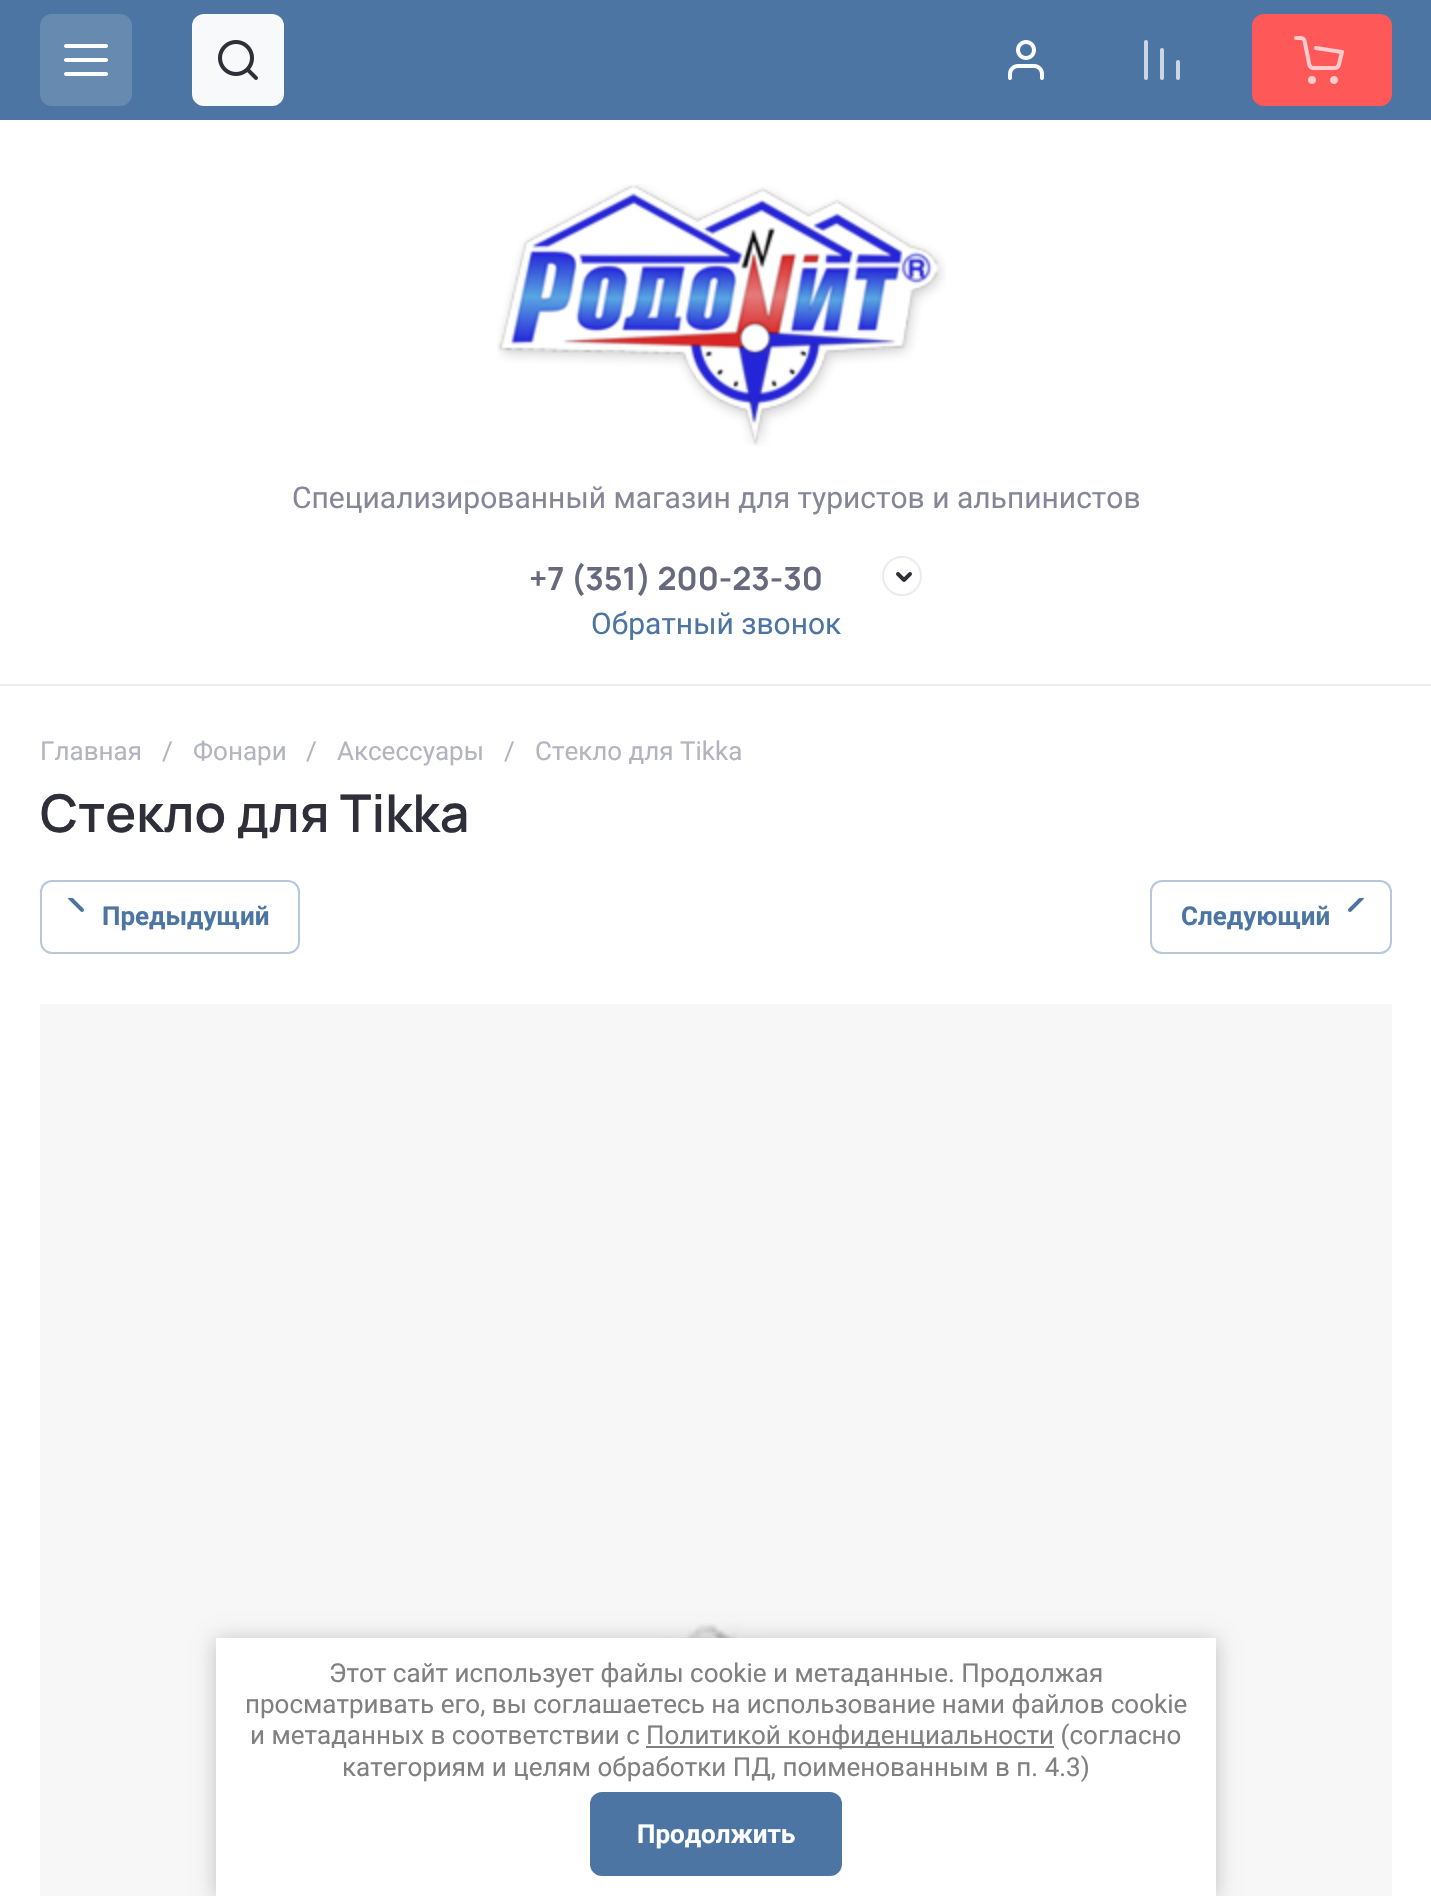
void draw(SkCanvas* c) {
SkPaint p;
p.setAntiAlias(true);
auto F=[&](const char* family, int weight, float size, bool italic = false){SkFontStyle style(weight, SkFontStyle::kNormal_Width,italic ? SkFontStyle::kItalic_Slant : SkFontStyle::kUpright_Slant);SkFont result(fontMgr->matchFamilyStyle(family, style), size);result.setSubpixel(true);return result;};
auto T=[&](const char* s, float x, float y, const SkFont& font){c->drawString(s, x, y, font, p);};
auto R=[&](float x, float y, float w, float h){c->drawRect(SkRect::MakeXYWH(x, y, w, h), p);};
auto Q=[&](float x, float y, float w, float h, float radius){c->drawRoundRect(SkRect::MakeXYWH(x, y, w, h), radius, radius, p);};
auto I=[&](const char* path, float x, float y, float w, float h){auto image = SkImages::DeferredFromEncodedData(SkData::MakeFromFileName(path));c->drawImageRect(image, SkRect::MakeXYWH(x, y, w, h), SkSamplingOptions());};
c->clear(0xffffffff);
p.setColor(0xff4c75a3);
R(0,0,1431,120);
p.setColor(0xff678ab1);
Q(40,14,92,92,12);
I("1.png",64,44,44,32);
p.setColor(0xfff7f9fa);
Q(192,14,92,92,12);
I("2.png",218,40,40,40);
I("3.png",1008,40,36,40);
I("4.png",1144,40,36,40);
p.setColor(0xffff5858);
Q(1252,14,140,92,12);
I("5.png",1294,36,50,48);
p.setColor(0xffececef);
R(0,684,1431,2);
I("6.png",497,184,449,262);
auto f1 = F("Roboto",400,30);
p.setColor(0xff858798);
T("Специализированный магазин для туристов и альпинистов",292,508,f1);
auto f2 = F("Manrope",700,32);
p.setColor(0xff67697e);
T("+7 (351) 200-23-30",529,590,f2);
p.setStroke(true);
p.setStrokeWidth(2);
p.setColor(0xffececef);
c->drawCircle(902,576,19,p);
I("7.png",896,572,16,10);
p.setStroke(false);
p.setColor(0xff4c75a3);
T("Обратный звонок",591,634,f1);
auto f3 = F("Roboto",400,26);
p.setColor(0xffb3b4bf);
T("Главная",40,760,f3);
T("/",162,760,f3);
T("Фонари",193,760,f3);
T("/",306,760,f3);
T("Аксессуары",337,760,f3);
T("/",504,760,f3);
T("Стекло для Tikka",535,760,f3);
auto f4 = F("Manrope",600,52);
p.setColor(0xff2e2f38);
T("Стекло для Tikka",40,832,f4);
p.setStroke(true);
p.setColor(0xffb7c8da);
c->drawRoundRect(SkRect::MakeXYWH(41,881,258,72),11,11,p);
I("8.png",68,898,16,14);
auto f5 = F("Roboto",700,26);
p.setStroke(false);
p.setColor(0xff4c75a3);
T("Предыдущий",102,925,f5);
p.setStroke(true);
p.setColor(0xffb7c8da);
c->drawRoundRect(SkRect::MakeXYWH(1151,881,240,72),11,11,p);
p.setStroke(false);
p.setColor(0xff4c75a3);
T("Следующий",1181,925,f5);
I("9.png",1348,898,16,14);
I("10.png",638,1623,141,15);
p.setColor(0x08000000);
R(40,1004,1352,892);
p.setColor(0x3b000000);
p.setMaskFilter(SkMaskFilter::MakeBlur(kNormal_SkBlurStyle, 10));
c->drawRect(SkRect::MakeXYWH(216,1640,1000,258),p);
p.setMaskFilter(nullptr);
p.setColor(0xffffffff);
R(216,1638,1000,258);
p.setColor(0xff808080);
T("Этот сайт использует файлы cookie и метаданные. Продолжая",329,1682,f3);
T("просматривать его, вы соглашаетесь на использование нами файлов cookie",245,1713,f3);
T("и метаданных в соответствии с",250,1744,f3);
R(646,1746,408,2);
T("Политикой конфиденциальности (согласно",646,1744,f3);
T("категориям и целям обработки ПД, поименованным в п. 4.3)",342,1776,f3);
p.setColor(0xff4c75a3);
Q(590,1792,252,84,12);
p.setColor(0xffffffff);
T("Продолжить",637,1843,f5);
}
